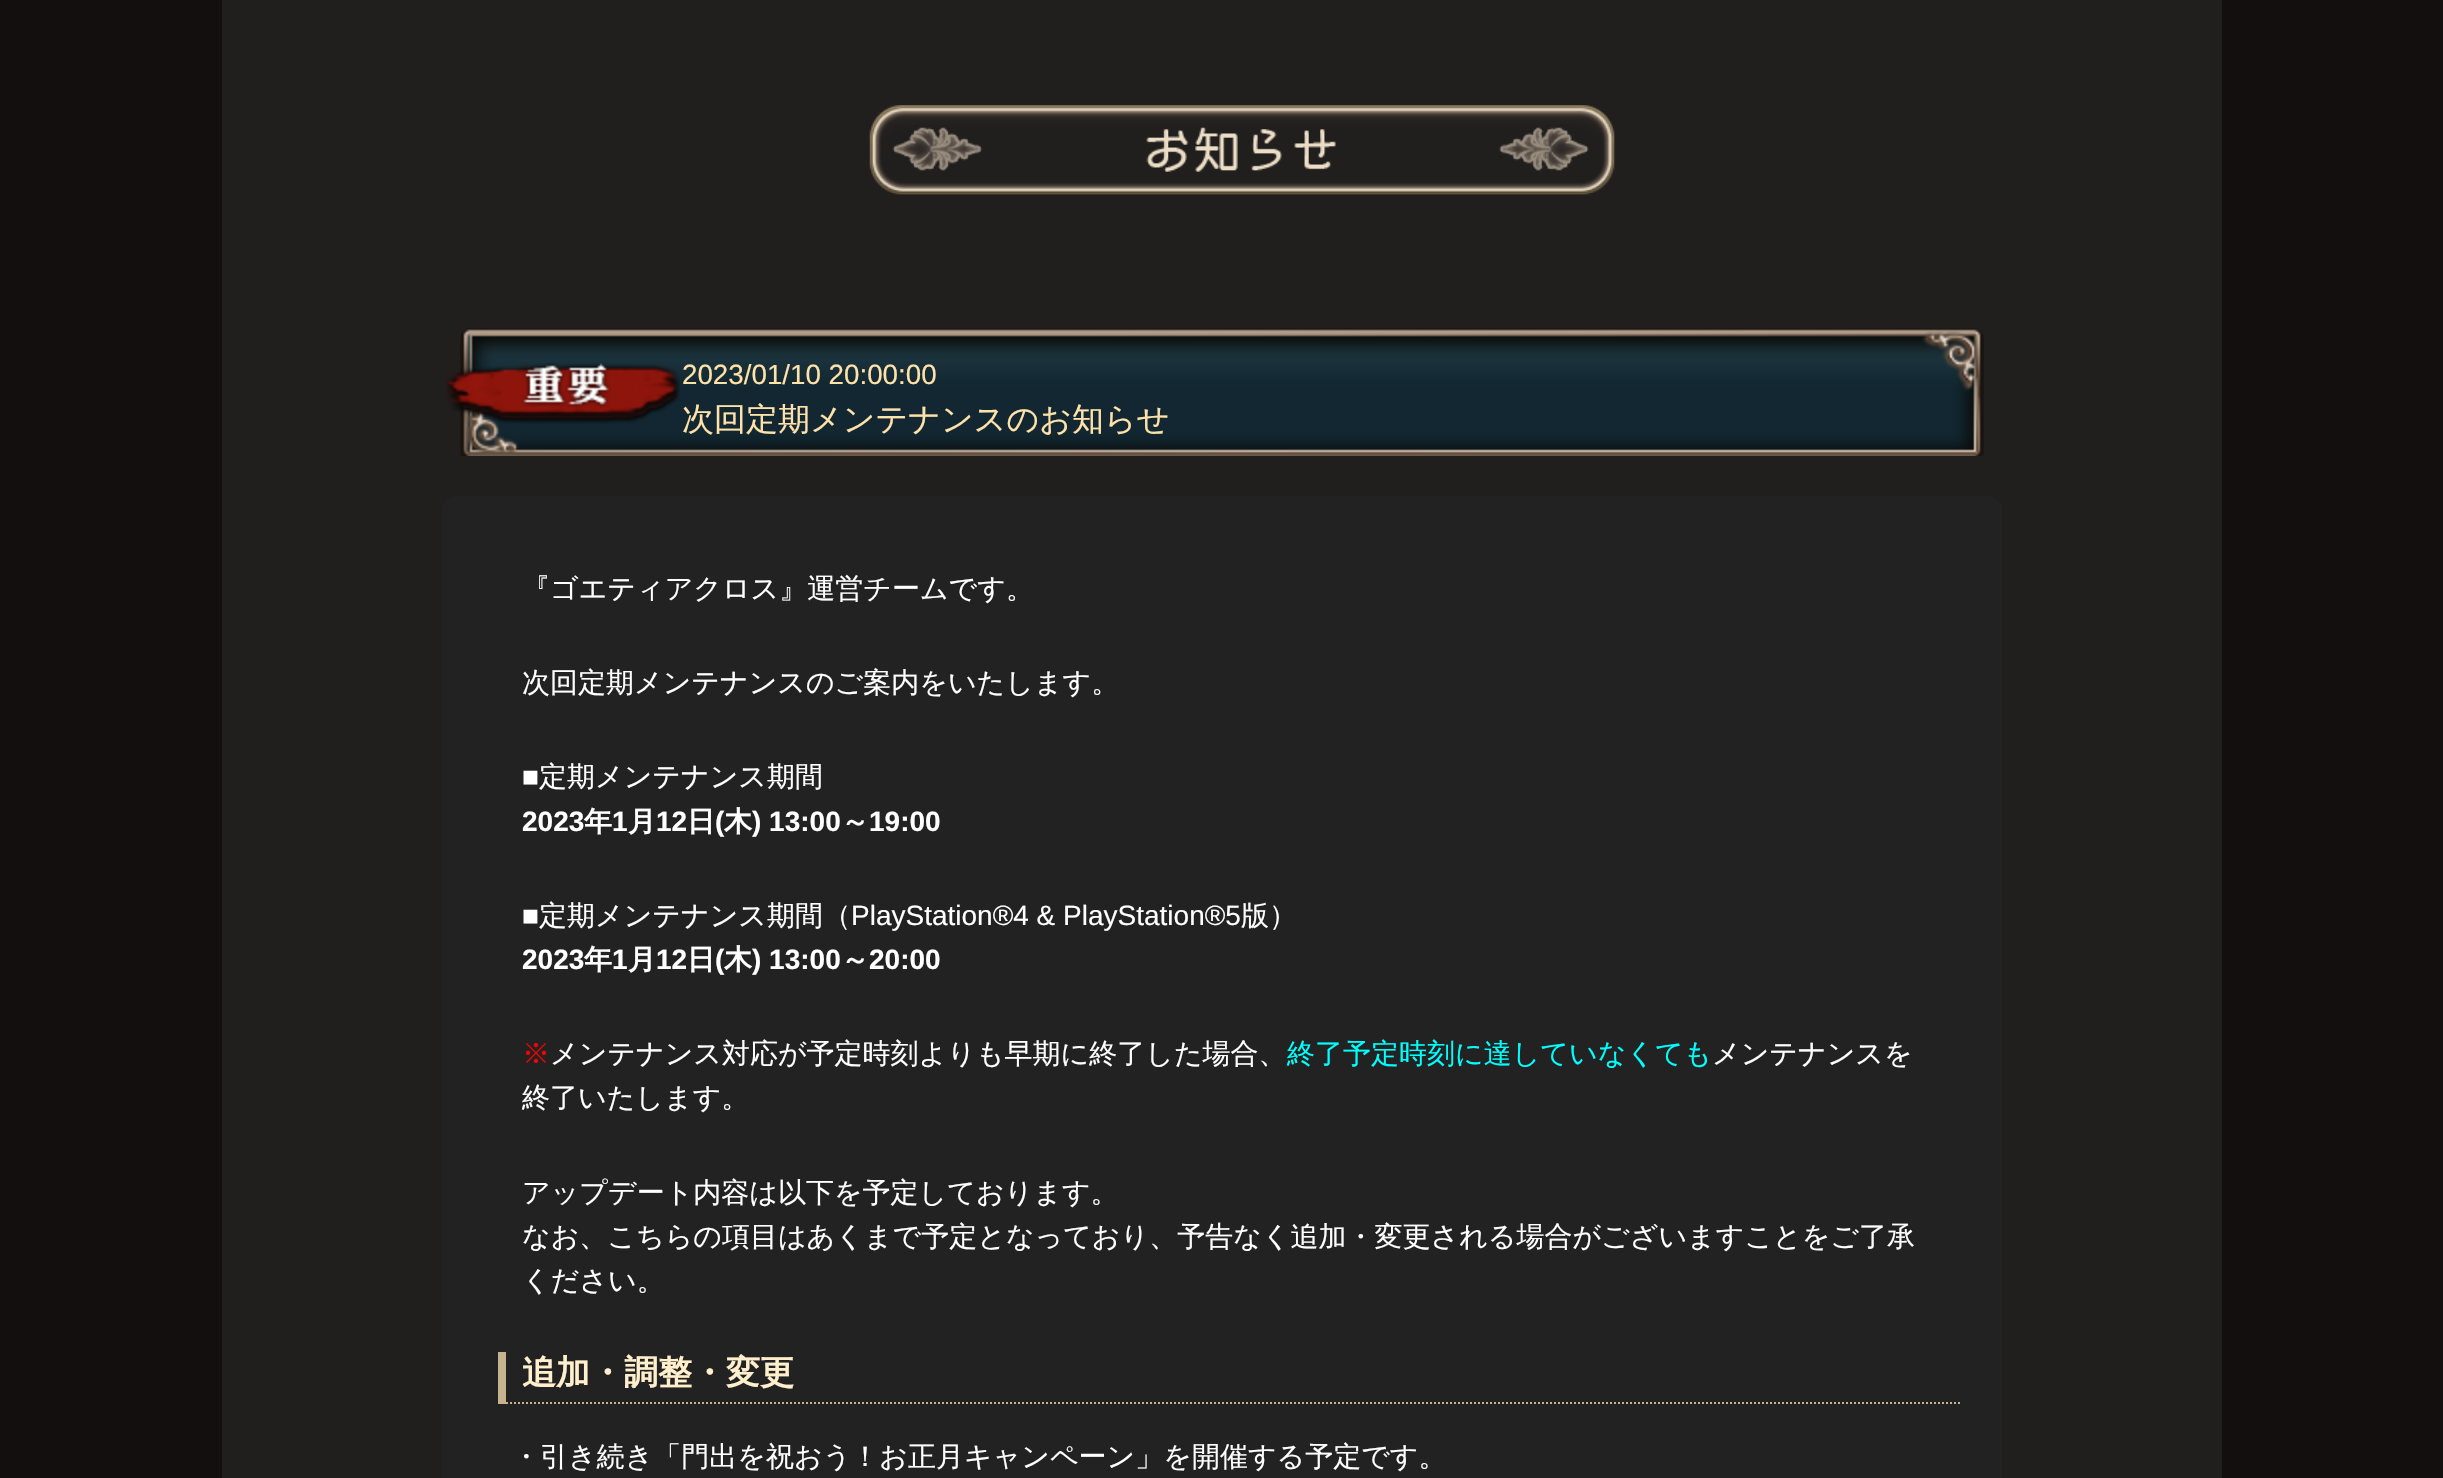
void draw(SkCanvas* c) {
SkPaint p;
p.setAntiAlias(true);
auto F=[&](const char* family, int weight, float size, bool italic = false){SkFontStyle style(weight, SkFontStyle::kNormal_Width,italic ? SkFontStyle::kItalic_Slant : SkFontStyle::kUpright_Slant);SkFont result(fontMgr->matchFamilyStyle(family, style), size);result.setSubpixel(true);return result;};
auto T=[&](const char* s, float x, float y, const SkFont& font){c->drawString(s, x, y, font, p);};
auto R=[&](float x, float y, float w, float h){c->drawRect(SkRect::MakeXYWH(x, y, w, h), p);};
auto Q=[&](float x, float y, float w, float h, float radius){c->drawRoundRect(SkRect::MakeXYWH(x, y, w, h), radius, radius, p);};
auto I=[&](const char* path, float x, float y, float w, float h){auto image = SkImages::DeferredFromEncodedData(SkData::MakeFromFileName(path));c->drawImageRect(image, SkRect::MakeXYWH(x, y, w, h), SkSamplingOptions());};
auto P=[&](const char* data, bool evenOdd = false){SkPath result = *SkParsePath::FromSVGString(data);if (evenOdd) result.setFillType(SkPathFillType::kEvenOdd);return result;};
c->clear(0xff130f0e);
p.setColor(0xff211e1e);
R(222,0,2000,1478);
I("1.png",869,105,746,90);
I("2.png",460,328,1524,128);
I("3.png",446,362,234,62);
auto f1 = F("Liberation Sans",400,27.75);
p.setColor(0xffffe2aa);
T("2023/01/10 20:00:00",682,384,f1);
auto f2 = F("WenQuanYi Zen Hei",500,32);
T("次回定期メンテナンスのお知らせ",682,430,f2);
p.setColor(0xff232222);
Q(442,496,1560,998,16);
auto f3 = F("WenQuanYi Zen Hei",500,28);
p.setColor(0xffffffff);
T("『ゴエティアクロス』運営チームです。",522,598,f3);
T("次回定期メンテナンスのご案内をいたします。",522,692,f3);
auto f4 = F("Liberation Sans",400,28);
T("■",522,786,f4);
T("定期メンテナンス期間",539,786,f3);
auto f5 = F("Liberation Sans",700,28);
T("2023",522,831,f5);
auto f6 = F("WenQuanYi Zen Hei",700,28);
T("年",584,831,f6);
T("1",612,831,f5);
T("月",628,831,f6);
T("12",656,831,f5);
T("日",687,831,f6);
T("(",715,831,f5);
T("木",724,831,f6);
T(") 13:00",752,831,f5);
T("～",841,831,f6);
T("19:00",869,831,f5);
T("■",522,925,f4);
T("定期メンテナンス期間（",539,925,f3);
T("PlayStation®4 & PlayStation®5",851,925,f4);
T("版）",1241,925,f3);
T("2023",522,969,f5);
T("年",584,969,f6);
T("1",612,969,f5);
T("月",628,969,f6);
T("12",656,969,f5);
T("日",687,969,f6);
T("(",715,969,f5);
T("木",724,969,f6);
T(") 13:00",752,969,f5);
T("～",841,969,f6);
T("20:00",869,969,f5);
p.setColor(0xffff0000);
T("※",522,1063,f3);
p.setColor(0xffffffff);
T("メンテナンス対応が予定時刻よりも早期に終了した場合、",550,1063,f3);
p.setColor(0xff00ffff);
T("終了予定時刻に達していなくても",1287,1063,f3);
p.setColor(0xffffffff);
T("メンテナンスを",1712,1063,f3);
T("終了いたします。",522,1107,f3);
T("アップデート内容は以下を予定しております。",522,1202,f3);
T("なお、こちらの項目はあくまで予定となっており、予告なく追加・変更される場合がございますことをご了承",522,1246,f3);
T("ください。",522,1290,f3);
p.setStroke(true);
p.setStrokeWidth(2);
p.setColor(0xffc7b28f);
p.setPathEffect(SkDashPathEffect::Make({{2,2}}, 0));
c->drawPath(P("M498 1403h1464"),p);
p.setPathEffect(nullptr);
p.setStroke(false);
R(498,1352,8,52);
auto f7 = F("WenQuanYi Zen Hei",700,34);
p.setColor(0xffffefcc);
T("追加・調整・変更",522,1384,f7);
p.setColor(0xffffffff);
T("・引き続き「門出を祝おう！お正月キャンペーン」を開催する予定です。",512,1466,f3);
}
